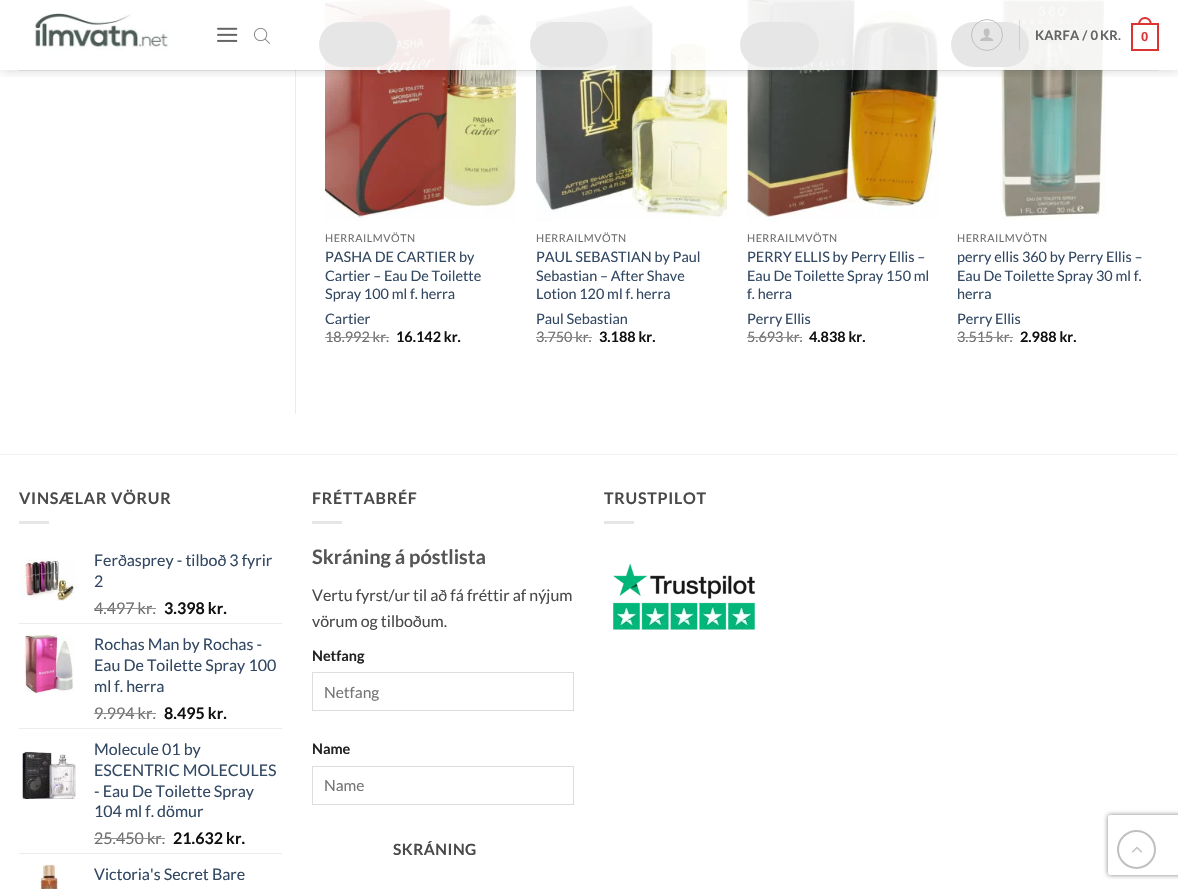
void draw(SkCanvas* c) {
SkPaint p;
p.setAntiAlias(true);
auto F=[&](const char* family, int weight, float size, bool italic = false){SkFontStyle style(weight, SkFontStyle::kNormal_Width,italic ? SkFontStyle::kItalic_Slant : SkFontStyle::kUpright_Slant);SkFont result(fontMgr->matchFamilyStyle(family, style), size);result.setSubpixel(true);return result;};
auto T=[&](const char* s, float x, float y, const SkFont& font){c->drawString(s, x, y, font, p);};
auto L=[&](const char* s, float x, float y, const SkFont& font, const SkPaint& ink, float letter, float word){std::vector<SkGlyphID> glyphs(font.countText(s, strlen(s), SkTextEncoding::kUTF8));std::vector<float> xs(glyphs.size());font.textToGlyphs(s, strlen(s), SkTextEncoding::kUTF8, glyphs);font.getXPos(glyphs, xs, x);float extra = 0;for (size_t i = 0; i < glyphs.size(); i++) {xs[i] += extra;extra += letter + word * (glyphs[i] == font.unicharToGlyph(' '));}c->drawTextBlob(SkTextBlob::MakeFromPosHGlyphs(glyphs, xs, y, font), 0, 0, ink);};
auto R=[&](float x, float y, float w, float h){c->drawRect(SkRect::MakeXYWH(x, y, w, h), p);};
auto Q=[&](float x, float y, float w, float h, float radius){c->drawRoundRect(SkRect::MakeXYWH(x, y, w, h), radius, radius, p);};
auto I=[&](const char* path, float x, float y, float w, float h){auto image = SkImages::DeferredFromEncodedData(SkData::MakeFromFileName(path));c->drawImageRect(image, SkRect::MakeXYWH(x, y, w, h), SkSamplingOptions());};
auto P=[&](const char* data, bool evenOdd = false){SkPath result = *SkParsePath::FromSVGString(data);if (evenOdd) result.setFillType(SkPathFillType::kEvenOdd);return result;};
c->clear(0xffffffff);
p.setColor(0xffececec);
R(295,0,1,414);
I("5.png",325,0,191,221);
p.setColor(0xff000000);
Q(319,22,78,45,22.5);
I("6.png",536,4,191,217);
Q(530,22,78,45,22.5);
I("7.png",747,0,191,221);
Q(740,22,79,45,22.5);
I("8.png",999,0,107,220);
Q(951,22,78,45,22.5);
c->save();
c->clipRect(SkRect::MakeXYWH(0,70,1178,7));
p.setColor(0x26000000);
p.setMaskFilter(SkMaskFilter::MakeBlur(kNormal_SkBlurStyle, 5));
c->drawRect(SkRect::MakeXYWH(1,1,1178,70),p);
p.setMaskFilter(nullptr);
c->restore();
p.setColor(0xe6ffffff);
R(295,0,811,70);
I("1.png",33,13,137,39);
I("2.png",217,27,21,15);
I("3.png",254,28,16,16);
p.setStroke(true);
p.setStrokeWidth(1);
p.setColor(0xffc0c0c0);
c->drawCircle(987,35,15.5,p);
I("4.png",980,28,14,13);
p.setStroke(false);
p.setColor(0x1a000000);
R(1019,20,1,30);
auto f1 = F("Lato",700,13);
p.setColor(0xff646463);
L("KARFA / 0",1035,40,f1,p,.25,0);
L("KR.",1100,40,f1,p,.25,0);
p.setStroke(true);
p.setStrokeWidth(2);
p.setColor(0xffdd3333);
c->drawRect(SkRect::MakeXYWH(1132,24,26,26),p);
p.setStroke(false);
c->drawPath(P("M1145 17c4.5 0 7 4 7 8h-14c0-4 2.5-8 7-8zm0 2c3.5 0 5 3 5 6h-10c0-3 1.5-6 5-6z",true),p);
auto f2 = F("Liberation Sans",700,13);
L("0",1141,41,f2,p,.25,0);
p.setColor(0x1a4a4a4a);
R(19,70,1140,1);
auto f3 = F("Lato",400,10.75);
p.setColor(0xff6e6e6e);
L("HERRAILMVÖTN",325,242,f3,p,.5,0);
auto f4 = F("Lato",400,14.4);
p.setColor(0xff334862);
T("PASHA DE CARTIER by",325,262,f4);
T("Cartier – Eau De Toilette",325,281,f4);
T("Spray 100 ml f. herra",325,299,f4);
T("Cartier",325,324,f4);
p.setColor(0xff6e6e6e);
T("18.992 kr.",325,342,f4);
p.setColor(0xff929292);
R(325,337,64,1);
auto f5 = F("Lato",700,14.4);
p.setColor(0xff111111);
T("16.142 kr.",396,342,f5);
p.setColor(0xff6e6e6e);
L("HERRAILMVÖTN",536,242,f3,p,.5,0);
p.setColor(0xff334862);
T("PAUL SEBASTIAN by Paul",536,262,f4);
T("Sebastian – After Shave",536,281,f4);
T("Lotion 120 ml f. herra",536,299,f4);
T("Paul Sebastian",536,324,f4);
p.setColor(0xff6e6e6e);
T("3.750 kr.",536,342,f4);
p.setColor(0xff929292);
R(536,337,56,1);
p.setColor(0xff111111);
T("3.188 kr.",599,342,f5);
p.setColor(0xff6e6e6e);
L("HERRAILMVÖTN",747,242,f3,p,.5,0);
p.setColor(0xff334862);
T("PERRY ELLIS by Perry Ellis –",747,262,f4);
T("Eau De Toilette Spray 150 ml",747,281,f4);
T("f. herra",747,299,f4);
T("Perry Ellis",747,324,f4);
p.setColor(0xff6e6e6e);
T("5.693 kr.",747,342,f4);
p.setColor(0xff929292);
R(747,337,55,1);
p.setColor(0xff111111);
T("4.838 kr.",809,342,f5);
p.setColor(0xff6e6e6e);
L("HERRAILMVÖTN",957,242,f3,p,.5,0);
p.setColor(0xff334862);
T("perry ellis 360 by Perry Ellis –",957,262,f4);
T("Eau De Toilette Spray 30 ml f.",957,281,f4);
T("herra",957,299,f4);
T("Perry Ellis",957,324,f4);
p.setColor(0xff6e6e6e);
T("3.515 kr.",957,342,f4);
p.setColor(0xff929292);
R(957,337,56,1);
p.setColor(0xff111111);
T("2.988 kr.",1020,342,f5);
p.setColor(0xfff2f2f2);
R(0,454,1178,1);
auto f6 = F("Lato",700,16);
p.setColor(0xff4a4a4a);
L("VINSÆLAR VÖRUR",19,504,f6,p,.75,0);
p.setColor(0xffe6e6e6);
R(19,521,30,3);
I("9.png",19,559,58,42);
auto f7 = F("Lato",400,16);
p.setColor(0xff334862);
T("Ferðasprey - tilboð 3 fyrir",94,566,f7);
T("2",94,587,f7);
p.setColor(0xff6e6e6e);
T("4.497 kr.",94,614,f7);
p.setColor(0xff929292);
R(94,608,62,1);
p.setColor(0xff111111);
T("3.398 kr.",164,614,f6);
p.setColor(0xffececec);
R(19,623,263,1);
I("10.png",24,634,50,60);
p.setColor(0xff334862);
T("Rochas Man by Rochas -",94,650,f7);
T("Eau De Toilette Spray 100",94,671,f7);
T("ml f. herra",94,692,f7);
p.setColor(0xff6e6e6e);
T("9.994 kr.",94,719,f7);
p.setColor(0xff929292);
R(94,713,62,1);
p.setColor(0xff111111);
T("8.495 kr.",164,719,f6);
p.setColor(0xffececec);
R(19,728,263,1);
I("11.png",22,751,54,48);
p.setColor(0xff334862);
T("Molecule 01 by",94,755,f7);
T("ESCENTRIC MOLECULES",94,776,f7);
T("- Eau De Toilette Spray",94,797,f7);
T("104 ml f. dömur",94,817,f7);
p.setColor(0xff6e6e6e);
T("25.450 kr.",94,844,f7);
p.setColor(0xff929292);
R(94,838,71,1);
p.setColor(0xff111111);
T("21.632 kr.",173,844,f6);
p.setColor(0xffececec);
R(19,853,263,1);
I("12.png",37,864,21,25);
p.setColor(0xff334862);
T("Victoria's Secret Bare",94,880,f7);
p.setColor(0xff4a4a4a);
L("FRÉTTABRÉF",312,504,f6,p,.75,0);
p.setColor(0xffe6e6e6);
R(312,521,30,3);
auto f8 = F("Lato",700,20);
p.setColor(0xff555555);
T("Skráning á póstlista",312,564,f8);
p.setColor(0xff4a4a4a);
T("Vertu fyrst/ur til að fá fréttir af nýjum",312,601,f7);
T("vörum og tilboðum.",312,627,f7);
p.setColor(0xff222222);
T("Netfang",312,661,f5);
p.setStroke(true);
p.setStrokeWidth(1);
p.setColor(0xffdddddd);
c->drawRect(SkRect::MakeXYWH(312.5,672.5,261,38),p);
auto f9 = F("Lato",400,15.5);
p.setStroke(false);
p.setColor(0xff757575);
T("Netfang",324,698,f9);
p.setColor(0xff222222);
T("Name",312,754,f5);
p.setStroke(true);
p.setColor(0xffdddddd);
c->drawRect(SkRect::MakeXYWH(312.5,766.5,261,38),p);
p.setStroke(false);
p.setColor(0xff757575);
T("Name",324,791,f9);
auto f10 = F("Lato",700,15.5);
p.setColor(0xff4a4a4a);
L("SKRÁNING",393,855,f10,p,.5,0);
L("TRUSTPILOT",604,504,f6,p,.75,0);
p.setColor(0xffe6e6e6);
R(604,521,30,3);
I("13.png",613,563,142,67);
c->save();
c->clipPath(P("M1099 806h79v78h-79zm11 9h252c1 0 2 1 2 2v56c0 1-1 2-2 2h-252c-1 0-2-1-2-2v-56c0-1 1-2 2-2z",true),true);
p.setColor(0xff808080);
p.setMaskFilter(SkMaskFilter::MakeBlur(kNormal_SkBlurStyle, 2.5));
c->drawRoundRect(SkRect::MakeXYWH(1108,815,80,60),2,2,p);
p.setMaskFilter(nullptr);
c->restore();
p.setStroke(true);
p.setStrokeWidth(2);
p.setColor(0xffc0c0c0);
c->drawCircle(1136.5,849.5,18.5,p);
I("14.png",1131,846,11,7);
}
